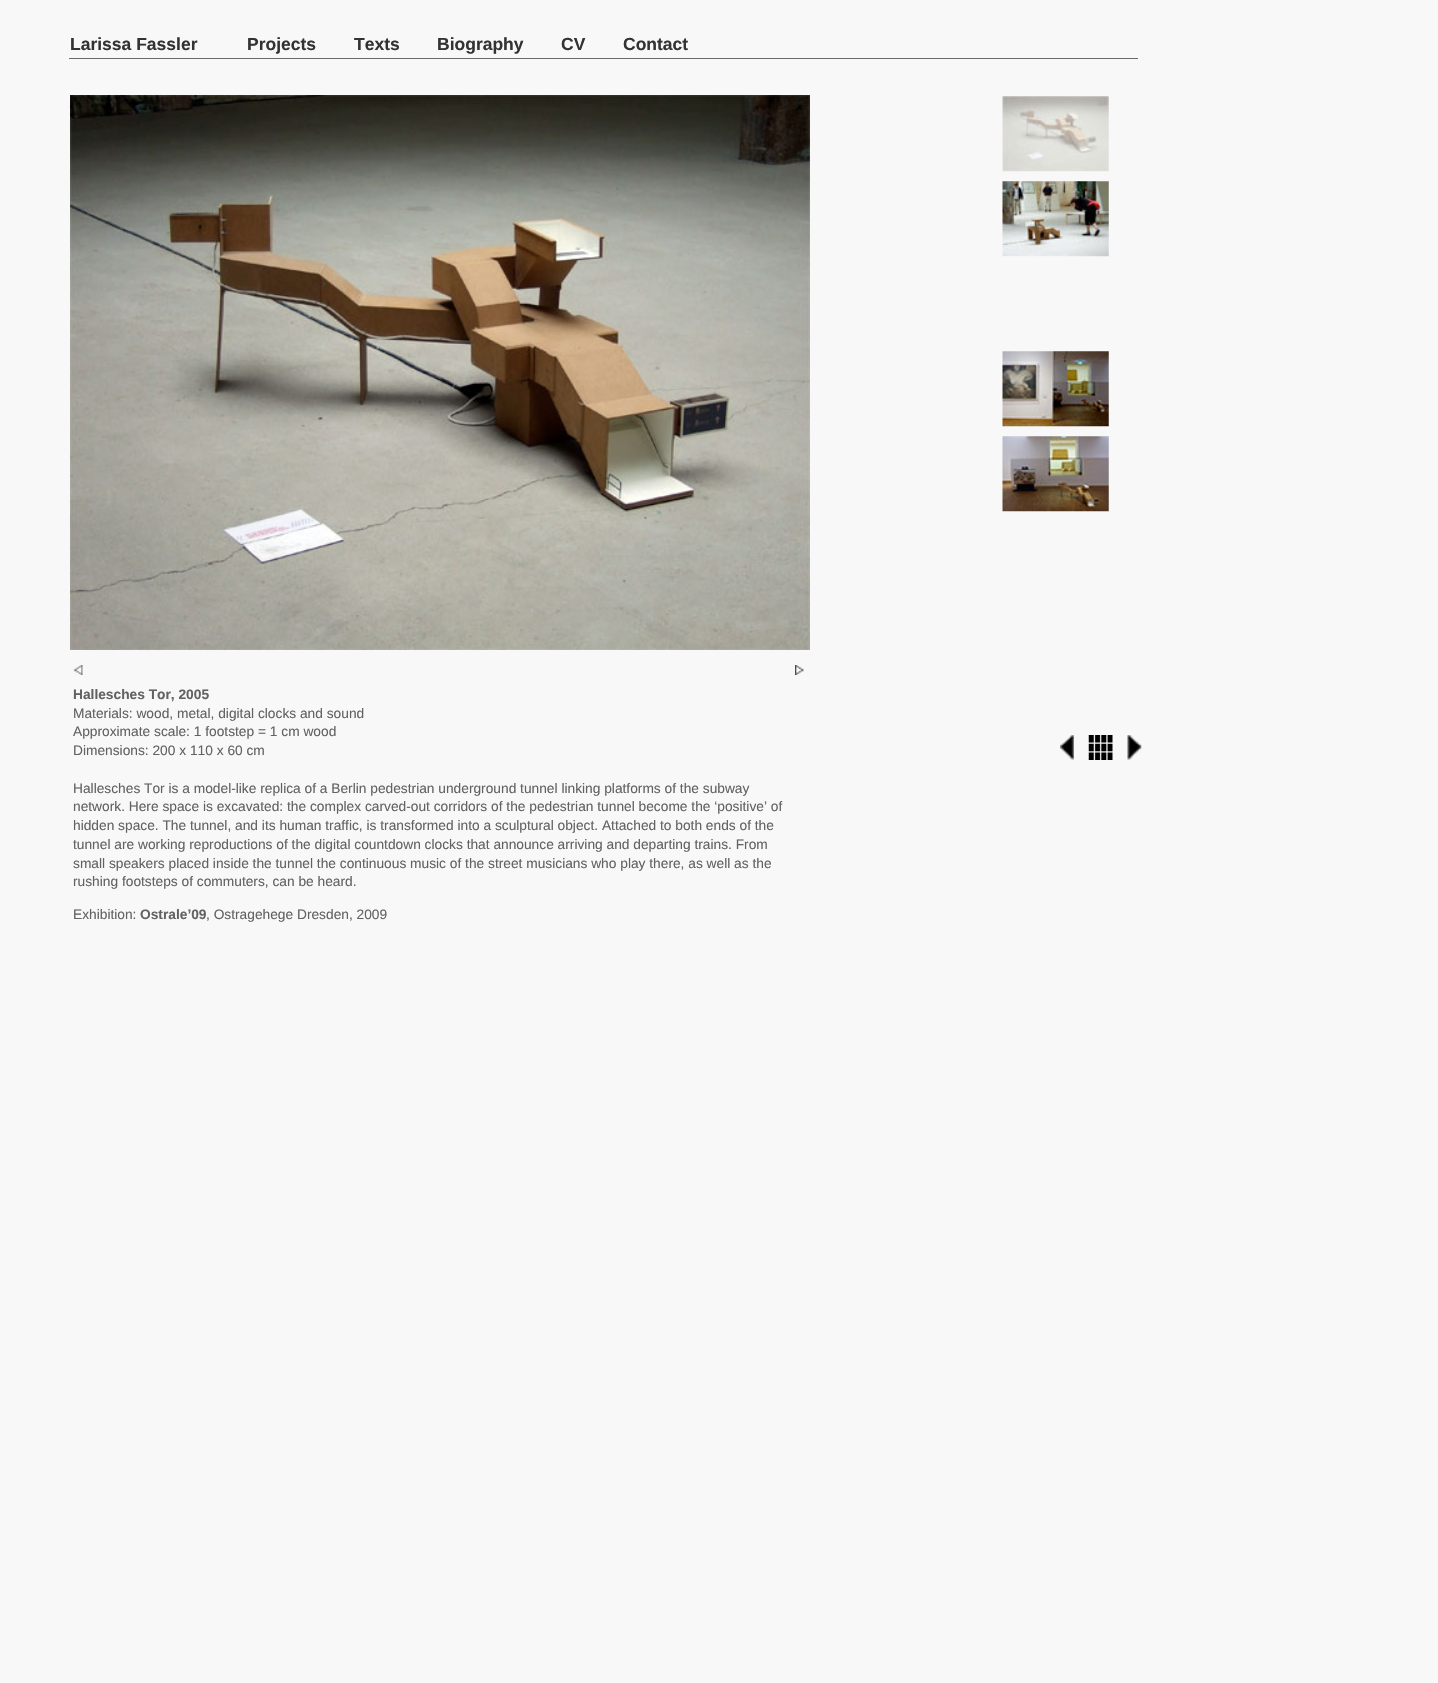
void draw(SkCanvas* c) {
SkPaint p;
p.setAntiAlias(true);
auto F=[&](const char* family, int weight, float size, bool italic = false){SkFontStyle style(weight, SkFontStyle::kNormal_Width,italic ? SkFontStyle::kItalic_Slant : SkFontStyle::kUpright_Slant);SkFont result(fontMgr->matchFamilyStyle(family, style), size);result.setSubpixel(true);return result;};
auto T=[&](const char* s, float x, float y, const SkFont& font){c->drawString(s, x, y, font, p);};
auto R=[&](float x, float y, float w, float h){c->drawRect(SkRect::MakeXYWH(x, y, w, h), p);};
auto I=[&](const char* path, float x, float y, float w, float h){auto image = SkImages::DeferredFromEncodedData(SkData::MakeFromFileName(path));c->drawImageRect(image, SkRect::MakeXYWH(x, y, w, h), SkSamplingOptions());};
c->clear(0xfff8f8f8);
auto f1 = F("Liberation Sans",700,17.5);
p.setColor(0xff333333);
T("Larissa Fassler",70,50,f1);
T("Projects",247,50,f1);
T("Texts",354,50,f1);
T("Biography",437,50,f1);
T("CV",561,50,f1);
T("Contact",623,50,f1);
p.setColor(0xff696969);
R(69,58,1069,1);
I("1.png",70,95,740,555);
I("2.png",1002,96,107,76);
I("3.png",1002,181,107,76);
I("4.png",1002,351,107,76);
I("5.png",1002,436,107,76);
I("6.png",73,665,10,10);
I("7.png",795,665,9,10);
auto f2 = F("Liberation Sans",700,13.75);
p.setColor(0xff626262);
T("Hallesches Tor, 2005",73,699,f2);
auto f3 = F("Liberation Sans",400,13.75);
T("Materials: wood, metal, digital clocks and sound",73,718,f3);
T("Approximate scale: 1 footstep = 1 cm wood",73,736,f3);
T("Dimensions: 200 x 110 x 60 cm",73,755,f3);
T("Hallesches Tor is a model-like replica of a Berlin pedestrian underground tunnel linking platforms of the subway",73,793,f3);
T("network. Here space is excavated: the complex carved-out corridors of the pedestrian tunnel become the ‘positive’ of",73,811,f3);
T("hidden space. The tunnel, and its human traffic, is transformed into a sculptural object. Attached to both ends of the",73,830,f3);
T("tunnel are working reproductions of the digital countdown clocks that announce arriving and departing trains. From",73,849,f3);
T("small speakers placed inside the tunnel the continuous music of the street musicians who play there, as well as the",73,868,f3);
T("rushing footsteps of commuters, can be heard.",73,886,f3);
T("Exhibition:",73,919,f3);
T("Ostrale’09",140,919,f2);
T(", Ostragehege Dresden, 2009",206,919,f3);
I("8.png",1060,735,14,25);
I("9.png",1088,735,25,25);
I("10.png",1127,735,15,25);
}
